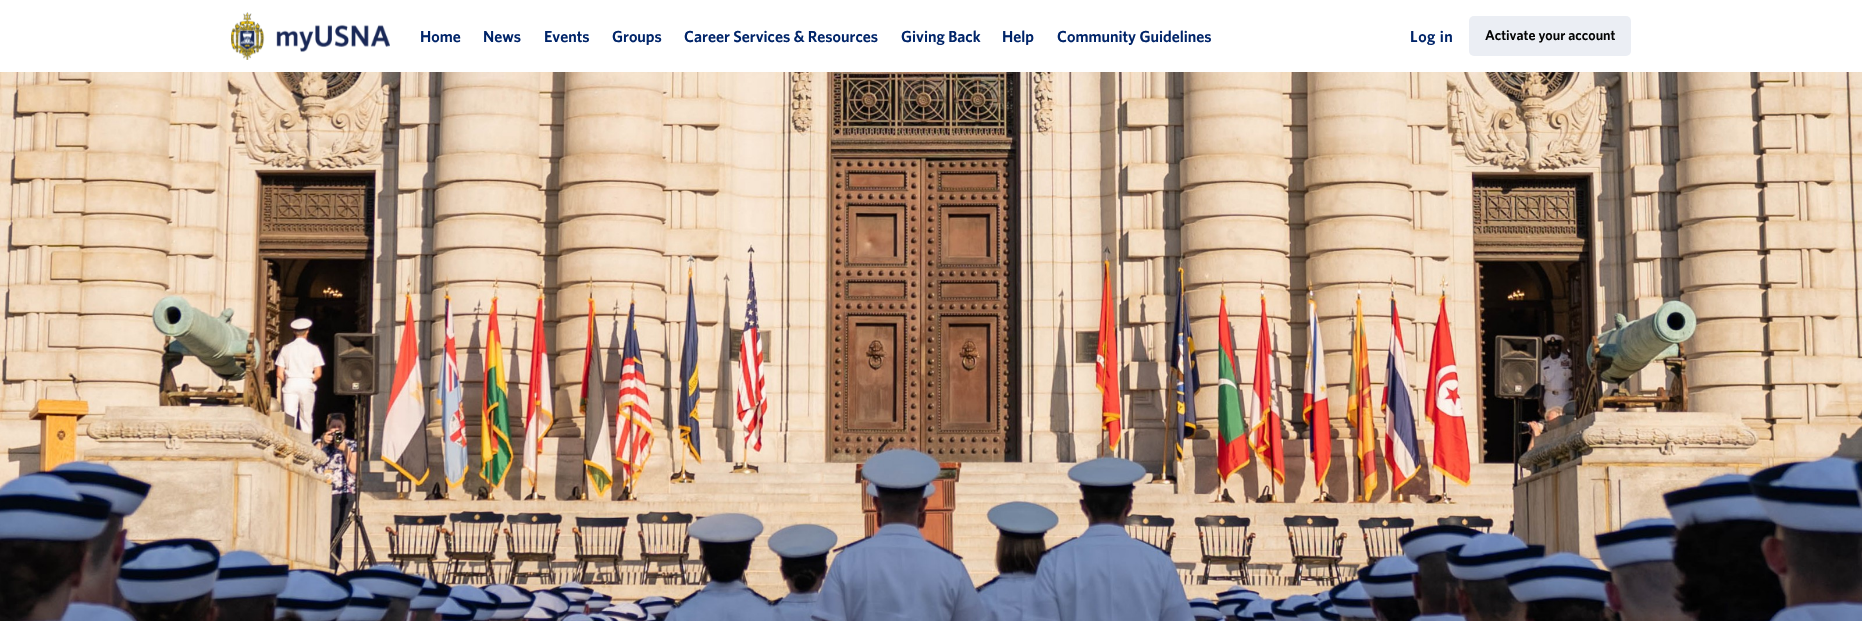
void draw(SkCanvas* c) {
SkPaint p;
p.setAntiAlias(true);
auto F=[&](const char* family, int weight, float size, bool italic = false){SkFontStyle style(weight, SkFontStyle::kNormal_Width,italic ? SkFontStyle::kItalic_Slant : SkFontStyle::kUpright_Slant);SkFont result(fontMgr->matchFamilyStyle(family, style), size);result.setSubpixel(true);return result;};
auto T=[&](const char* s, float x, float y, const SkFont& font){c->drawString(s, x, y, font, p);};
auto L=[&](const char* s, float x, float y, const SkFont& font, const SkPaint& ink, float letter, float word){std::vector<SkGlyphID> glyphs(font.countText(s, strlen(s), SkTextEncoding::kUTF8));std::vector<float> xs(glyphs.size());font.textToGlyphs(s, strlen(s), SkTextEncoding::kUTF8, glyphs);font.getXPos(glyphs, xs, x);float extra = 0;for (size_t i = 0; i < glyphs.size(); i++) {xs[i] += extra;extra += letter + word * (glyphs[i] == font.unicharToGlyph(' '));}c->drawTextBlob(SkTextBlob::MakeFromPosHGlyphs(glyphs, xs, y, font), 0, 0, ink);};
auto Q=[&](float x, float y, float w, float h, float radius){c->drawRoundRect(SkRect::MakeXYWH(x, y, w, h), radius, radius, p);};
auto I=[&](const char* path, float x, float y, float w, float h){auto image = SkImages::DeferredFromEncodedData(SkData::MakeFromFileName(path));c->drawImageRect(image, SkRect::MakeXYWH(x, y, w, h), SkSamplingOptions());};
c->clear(0xffffffff);
I("1.png",231,12,159,48);
auto f1 = F("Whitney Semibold",600,16);
p.setColor(0xff002469);
T("Home",420,42,f1);
T("News",483,42,f1);
T("Events",544,42,f1);
T("Groups",612,42,f1);
T("Career Services & Resources",684,42,f1);
T("Giving Back",901,42,f1);
T("Help",1002,42,f1);
T("Community Guidelines",1057,42,f1);
L("Log in",1410,42,f1,p,.5,0);
p.setColor(0xffebeef4);
Q(1469,16,162,40,5);
auto f2 = F("Whitney Semibold",600,14);
p.setColor(0xff050505);
T("Activate your account",1485,40,f2);
I("2.png",0,72,1862,549);
}
